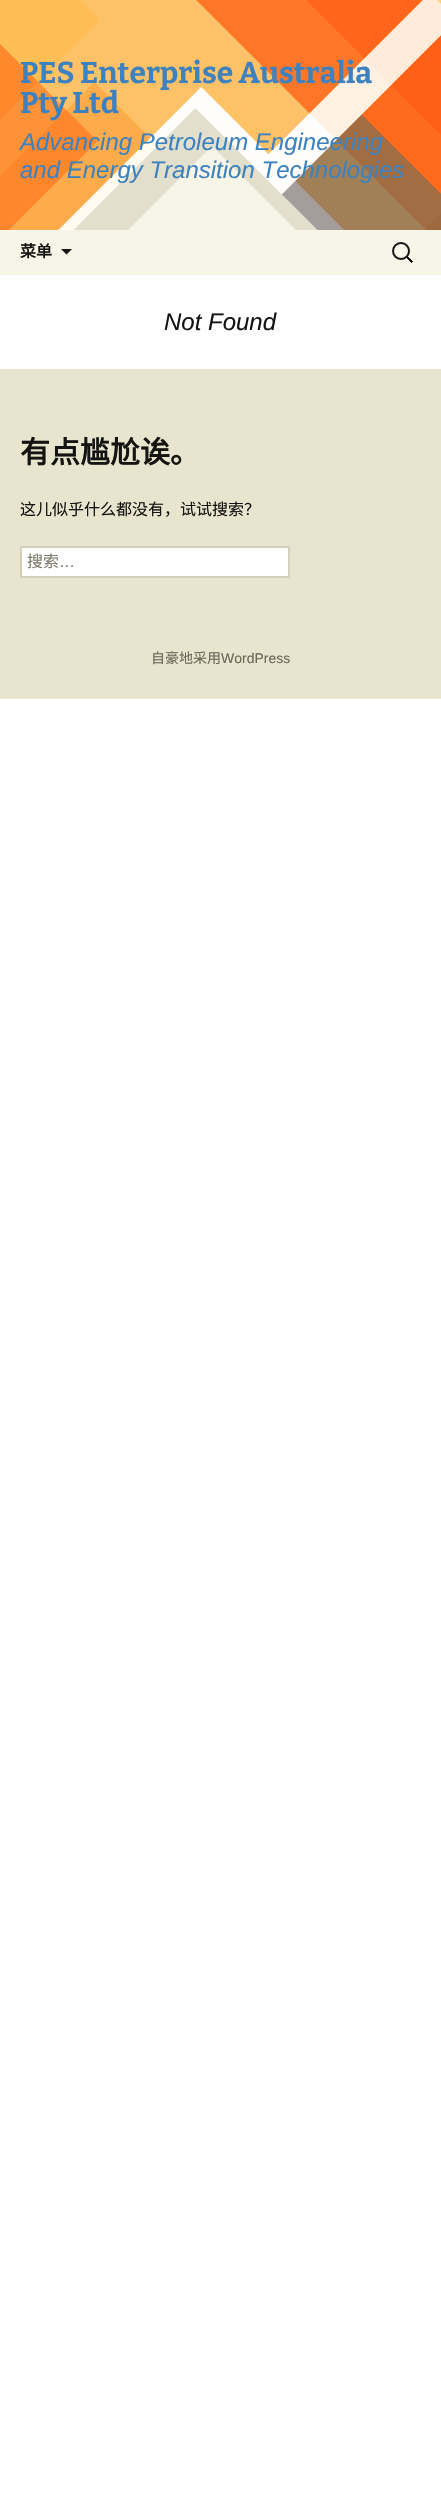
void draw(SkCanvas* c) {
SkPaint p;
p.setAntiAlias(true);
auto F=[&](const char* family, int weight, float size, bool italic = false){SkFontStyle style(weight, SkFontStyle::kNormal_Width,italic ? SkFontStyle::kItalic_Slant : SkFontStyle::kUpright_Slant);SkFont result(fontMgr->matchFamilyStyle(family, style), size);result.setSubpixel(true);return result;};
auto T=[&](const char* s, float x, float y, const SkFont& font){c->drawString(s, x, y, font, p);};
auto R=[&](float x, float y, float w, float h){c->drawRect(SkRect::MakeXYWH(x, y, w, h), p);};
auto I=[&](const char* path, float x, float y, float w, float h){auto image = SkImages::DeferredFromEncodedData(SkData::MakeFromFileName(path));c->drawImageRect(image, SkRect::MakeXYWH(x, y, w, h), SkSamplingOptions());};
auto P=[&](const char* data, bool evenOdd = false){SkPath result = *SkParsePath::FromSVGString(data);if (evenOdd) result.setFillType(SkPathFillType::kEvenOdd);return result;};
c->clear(0xffffffff);
I("1.png",0,0,441,230);
auto f1 = F("Bitter",700,30);
p.setColor(0xff3d82bf);
T("PES Enterprise Australia",20,83,f1);
T("Pty Ltd",20,113,f1);
auto f2 = F("Liberation Sans",400,24,true);
T("Advancing Petroleum Engineering",20,150,f2);
T("and Energy Transition Technologies",20,178,f2);
p.setColor(0xfff7f5e7);
R(0,230,441,45);
auto f3 = F("Noto Sans CJK SC",700,16);
p.setColor(0xff141412);
T("菜单",20,257,f3);
c->drawPath(P("M61 249h11l-5.5 5.5z"),p);
I("2.png",392,242,21,21);
T("Not Found",164,330,f2);
p.setColor(0xffe8e5ce);
R(0,369,441,330);
auto f4 = F("Noto Sans CJK SC",700,30);
p.setColor(0xff141412);
T("有点尴尬诶。",20,463,f4);
auto f5 = F("Noto Sans CJK SC",400,16);
T("这儿似乎什么都没有，试试搜索？",20,515,f5);
p.setColor(0xffffffff);
c->drawRect(SkRect::MakeXYWH(21,547,268,30),p);
p.setStroke(true);
p.setStrokeWidth(2);
p.setColor(0xffd4d0ba);
c->drawRect(SkRect::MakeXYWH(21,547,268,30),p);
p.setStroke(false);
p.setColor(0xff7d7b6d);
T("搜索",27,567,f5);
auto f6 = F("Liberation Sans",400,16);
T("…",59,567,f6);
auto f7 = F("Noto Sans CJK SC",400,14);
p.setColor(0xff686758);
T("自豪地采用",151,663,f7);
auto f8 = F("Liberation Sans",400,14);
T("WordPress",221,663,f8);
}
